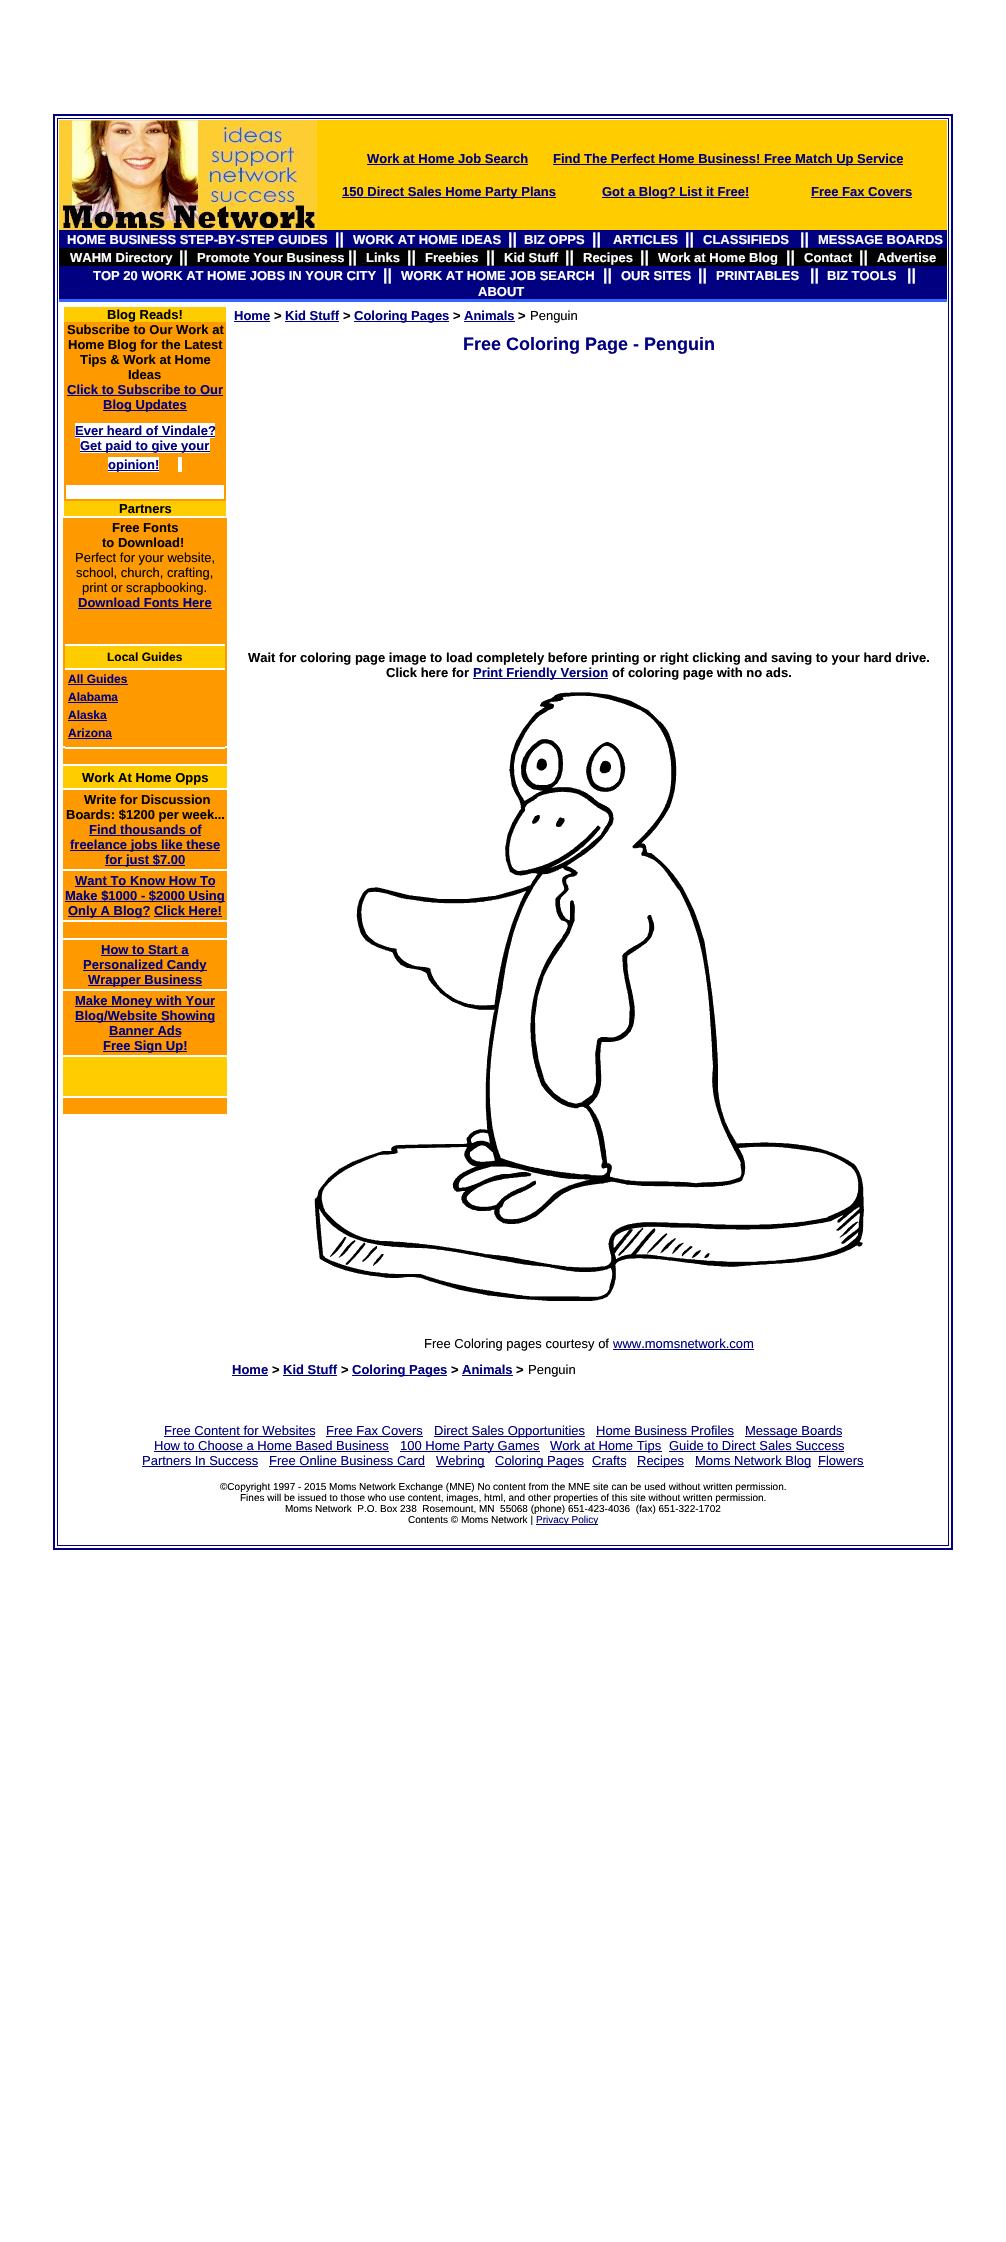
void draw(SkCanvas* c) {
SkPaint p;
p.setAntiAlias(true);
auto F=[&](const char* family, int weight, float size, bool italic = false){SkFontStyle style(weight, SkFontStyle::kNormal_Width,italic ? SkFontStyle::kItalic_Slant : SkFontStyle::kUpright_Slant);SkFont result(fontMgr->matchFamilyStyle(family, style), size);result.setSubpixel(true);return result;};
auto T=[&](const char* s, float x, float y, const SkFont& font){c->drawString(s, x, y, font, p);};
auto R=[&](float x, float y, float w, float h){c->drawRect(SkRect::MakeXYWH(x, y, w, h), p);};
auto I=[&](const char* path, float x, float y, float w, float h){auto image = SkImages::DeferredFromEncodedData(SkData::MakeFromFileName(path));c->drawImageRect(image, SkRect::MakeXYWH(x, y, w, h), SkSamplingOptions());};
c->clear(0xffffffff);
p.setStroke(true);
p.setStrokeWidth(2);
p.setColor(0xff000080);
c->drawRect(SkRect::MakeXYWH(54,115,898,1434),p);
p.setStrokeWidth(1);
c->drawRect(SkRect::MakeXYWH(57.5,118.5,891,1427),p);
p.setStroke(false);
p.setColor(0xffffcc00);
R(317,120,630,110);
I("1.png",59,120,258,110);
auto f1 = F("Liberation Sans",700,13);
p.setColor(0xff000080);
T("Work at Home Job Search",367,163,f1);
R(367,164,161,1);
R(553,164,350,1);
T("Find The Perfect Home Business! Free Match Up Service",553,163,f1);
R(342,197,214,1);
T("150 Direct Sales Home Party Plans",342,196,f1);
R(602,197,147,1);
T("Got a Blog? List it Free!",602,196,f1);
T("Free Fax Covers",811,196,f1);
R(811,197,101,1);
R(59,230,888,69);
p.setColor(0xffffffff);
T("HOME BUSINESS STEP-BY-STEP GUIDES",67,244,f1);
auto f2 = F("Liberation Sans",700,16);
T("||",335,244,f2);
T("WORK AT HOME IDEAS",353,244,f1);
T("||",508,244,f2);
T("BIZ OPPS",524,244,f1);
T("||",592,244,f2);
T("ARTICLES",613,244,f1);
T("||",685,244,f2);
T("CLASSIFIEDS",703,244,f1);
T("||",800,244,f2);
T("MESSAGE BOARDS",818,244,f1);
p.setColor(0xff000000);
R(59,248,888,18);
p.setColor(0xffffffff);
T("WAHM Directory",70,262,f1);
T("||",179,262,f2);
T("Promote Your Business",197,262,f1);
T("||",348,262,f2);
T("Links",366,262,f1);
p.setColor(0xff000080);
R(362,263,4,1);
p.setColor(0xffffffff);
T("||",407,262,f2);
T("Freebies",425,262,f1);
T("||",486,262,f2);
T("Kid Stuff",504,262,f1);
T("||",565,262,f2);
T("Recipes",583,262,f1);
T("||",640,262,f2);
T("Work at Home Blog",658,262,f1);
T("||",786,262,f2);
T("Contact",804,262,f1);
T("||",859,262,f2);
T("Advertise",877,262,f1);
T("TOP 20 WORK AT HOME JOBS IN YOUR CITY",93,280,f1);
T("||",383,280,f2);
T("WORK AT HOME JOB SEARCH",401,280,f1);
T("||",603,280,f2);
T("OUR SITES",621,280,f1);
T("||",698,280,f2);
T("PRINTABLES",716,280,f1);
T("||",810,280,f2);
T("BIZ TOOLS",827,280,f1);
T("||",907,280,f2);
T("ABOUT",478,296,f1);
p.setColor(0xff3366ff);
R(59,299,888,3);
p.setColor(0xffffcc00);
R(64,307,162,209);
p.setColor(0xff000000);
T("Blog Reads!",107,319,f1);
p.setColor(0xffff9900);
R(64,322,162,179);
p.setColor(0xff000000);
T("Subscribe to Our Work at",67,334,f1);
T("Home Blog for the Latest",68,349,f1);
T("Tips & Work at Home",80,364,f1);
T("Ideas",128,379,f1);
p.setColor(0xff000080);
T("Click to Subscribe to Our",67,394,f1);
R(67,395,156,1);
R(103,410,84,1);
T("Blog Updates",103,409,f1);
p.setColor(0xffffffff);
R(75,423,140,15);
p.setColor(0xff000080);
T("Ever heard of Vindale?",75,435,f1);
R(75,436,140,1);
p.setColor(0xffffffff);
R(80,438,130,15);
p.setColor(0xff000080);
R(80,451,130,1);
T("Get paid to give your",80,450,f1);
p.setColor(0xffffffff);
R(108,457,51,15);
p.setColor(0xff000080);
R(108,470,51,1);
T("opinion!",108,469,f1);
p.setColor(0xffffffff);
R(178,457,4,15);
R(66,485,158,14);
p.setColor(0xff000000);
T("Partners",119,513,f1);
p.setColor(0xffff9900);
R(63,518,164,228);
p.setColor(0xff000000);
T("Free Fonts",112,532,f1);
T("to Download!",102,547,f1);
auto f3 = F("Liberation Sans",400,13);
T("Perfect for your website,",75,562,f3);
T("school, church, crafting,",76,577,f3);
T("print or scrapbooking.",82,592,f3);
p.setColor(0xff000080);
T("Download Fonts Here",78,607,f1);
R(78,608,134,1);
p.setColor(0xffffcc00);
R(65,646,160,22);
p.setColor(0xffffffff);
R(65,644,160,2);
R(65,668,160,2);
auto f4 = F("Liberation Sans",700,12);
p.setColor(0xff000000);
T("Local Guides",107,661,f4);
p.setColor(0xffff9900);
R(65,746,160,1);
R(63,748,164,16);
p.setColor(0xffffffff);
R(65,748,160,1);
p.setColor(0xff000080);
T("All Guides",68,683,f4);
R(68,684,60,1);
T("Alabama",68,701,f4);
R(68,702,50,1);
T("Alaska",68,719,f4);
R(68,720,39,1);
T("Arizona",68,737,f4);
R(68,738,44,1);
p.setColor(0xffffcc00);
R(63,766,164,22);
p.setColor(0xff000000);
T("Work At Home Opps",82,782,f1);
p.setColor(0xffff9900);
R(63,790,164,79);
p.setColor(0xff000000);
T("Write for Discussion",84,804,f1);
T("Boards: $1200 per week...",66,819,f1);
p.setColor(0xff000080);
T("Find thousands of",89,834,f1);
R(89,835,112,1);
R(70,850,150,1);
T("freelance jobs like these",70,849,f1);
R(105,865,80,1);
T("for just $7.00",105,864,f1);
p.setColor(0xffff9900);
R(63,871,164,49);
p.setColor(0xff000080);
T("Want To Know How To",75,885,f1);
R(75,886,140,1);
R(65,901,160,1);
T("Make $1000 - $2000 Using",65,900,f1);
R(68,916,82,1);
T("Only A Blog? Click Here!",68,915,f1);
R(154,916,68,1);
p.setColor(0xffff9900);
R(63,922,164,16);
R(63,940,164,49);
p.setColor(0xff000080);
T("How to Start a",101,954,f1);
R(101,955,88,1);
R(83,970,124,1);
T("Personalized Candy",83,969,f1);
R(88,985,114,1);
T("Wrapper Business",88,984,f1);
p.setColor(0xffff9900);
R(63,991,164,64);
p.setColor(0xff000080);
R(75,1006,140,1);
T("Make Money with Your",75,1005,f1);
R(75,1021,140,1);
T("Blog/Website Showing",75,1020,f1);
T("Banner Ads",109,1035,f1);
R(109,1036,72,1);
R(103,1051,84,1);
T("Free Sign Up!",103,1050,f1);
p.setColor(0xffffcc00);
R(63,1057,164,39);
p.setColor(0xffff9900);
R(63,1098,164,16);
p.setColor(0xff000080);
T("Home",234,320,f1);
R(234,321,36,1);
p.setColor(0xff000000);
T(">",274,320,f1);
p.setColor(0xff000080);
T("Kid Stuff",285,320,f1);
R(285,321,54,1);
p.setColor(0xff000000);
T(">",343,320,f1);
p.setColor(0xff000080);
R(354,321,95,1);
T("Coloring Pages",354,320,f1);
p.setColor(0xff000000);
T(">",453,320,f1);
p.setColor(0xff000080);
T("Animals",464,320,f1);
R(464,321,51,1);
p.setColor(0xff000000);
T(">",518,320,f1);
T("Penguin",530,320,f3);
auto f5 = F("Liberation Sans",700,18);
p.setColor(0xff000080);
T("Free Coloring Page - Penguin",463,350,f5);
p.setColor(0xff000000);
T("Wait for coloring page image to load completely before printing or right clicking and saving to your hard drive.",248,662,f1);
T("Click here for",386,677,f1);
p.setColor(0xff000080);
R(473,678,135,1);
T("Print Friendly Version",473,677,f1);
p.setColor(0xff000000);
T("of coloring page with no ads.",612,677,f1);
I("2.png",314,692,550,609);
T("Free Coloring pages courtesy of",424,1348,f3);
p.setColor(0xff000080);
T("www.momsnetwork.com",613,1348,f3);
R(613,1349,141,1);
T("Home",232,1374,f1);
R(232,1375,36,1);
p.setColor(0xff000000);
T(">",272,1374,f1);
p.setColor(0xff000080);
T("Kid Stuff",283,1374,f1);
R(283,1375,54,1);
p.setColor(0xff000000);
T(">",341,1374,f1);
p.setColor(0xff000080);
R(352,1375,95,1);
T("Coloring Pages",352,1374,f1);
p.setColor(0xff000000);
T(">",451,1374,f1);
p.setColor(0xff000080);
T("Animals",462,1374,f1);
R(462,1375,51,1);
p.setColor(0xff000000);
T(">",516,1374,f1);
T("Penguin",528,1374,f3);
p.setColor(0xff000080);
T("Free Content for Websites",164,1435,f3);
R(164,1436,151,1);
T("Free Fax Covers",326,1435,f3);
R(326,1436,97,1);
R(434,1436,151,1);
T("Direct Sales Opportunities",434,1435,f3);
T("Home Business Profiles",596,1435,f3);
R(596,1436,138,1);
R(745,1436,97,1);
T("Message Boards",745,1435,f3);
T("How to Choose a Home Based Business",154,1450,f3);
R(154,1451,235,1);
R(400,1451,140,1);
T("100 Home Party Games",400,1450,f3);
R(550,1451,112,1);
T("Work at Home Tips",550,1450,f3);
T("Guide to Direct Sales Success",669,1450,f3);
R(669,1451,175,1);
T("Partners In Success",142,1465,f3);
R(142,1466,116,1);
T("Free Online Business Card",269,1465,f3);
R(269,1466,156,1);
R(436,1466,49,1);
T("Webring",436,1465,f3);
R(495,1466,89,1);
T("Coloring Pages",495,1465,f3);
T("Crafts",592,1465,f3);
R(592,1466,34,1);
R(637,1466,47,1);
T("Recipes",637,1465,f3);
R(695,1466,116,1);
T("Moms Network Blog",695,1465,f3);
T("Flowers",818,1465,f3);
R(818,1466,46,1);
auto f6 = F("Liberation Sans",400,10);
p.setColor(0xff000000);
T("©Copyright 1997 - 2015 Moms Network Exchange (MNE) No content from the MNE site can be used without written permission.",220,1490,f6);
T("Fines will be issued to those who use content, images, html, and other properties of this site without written permission.",240,1501,f6);
T("Moms Network  P.O. Box 238  Rosemount, MN  55068 (phone) 651-423-4036  (fax) 651-322-1702",285,1512,f6);
T("Contents © Moms Network |",408,1523,f6);
p.setColor(0xff000080);
R(536,1524,62,1);
T("Privacy Policy",536,1523,f6);
}
